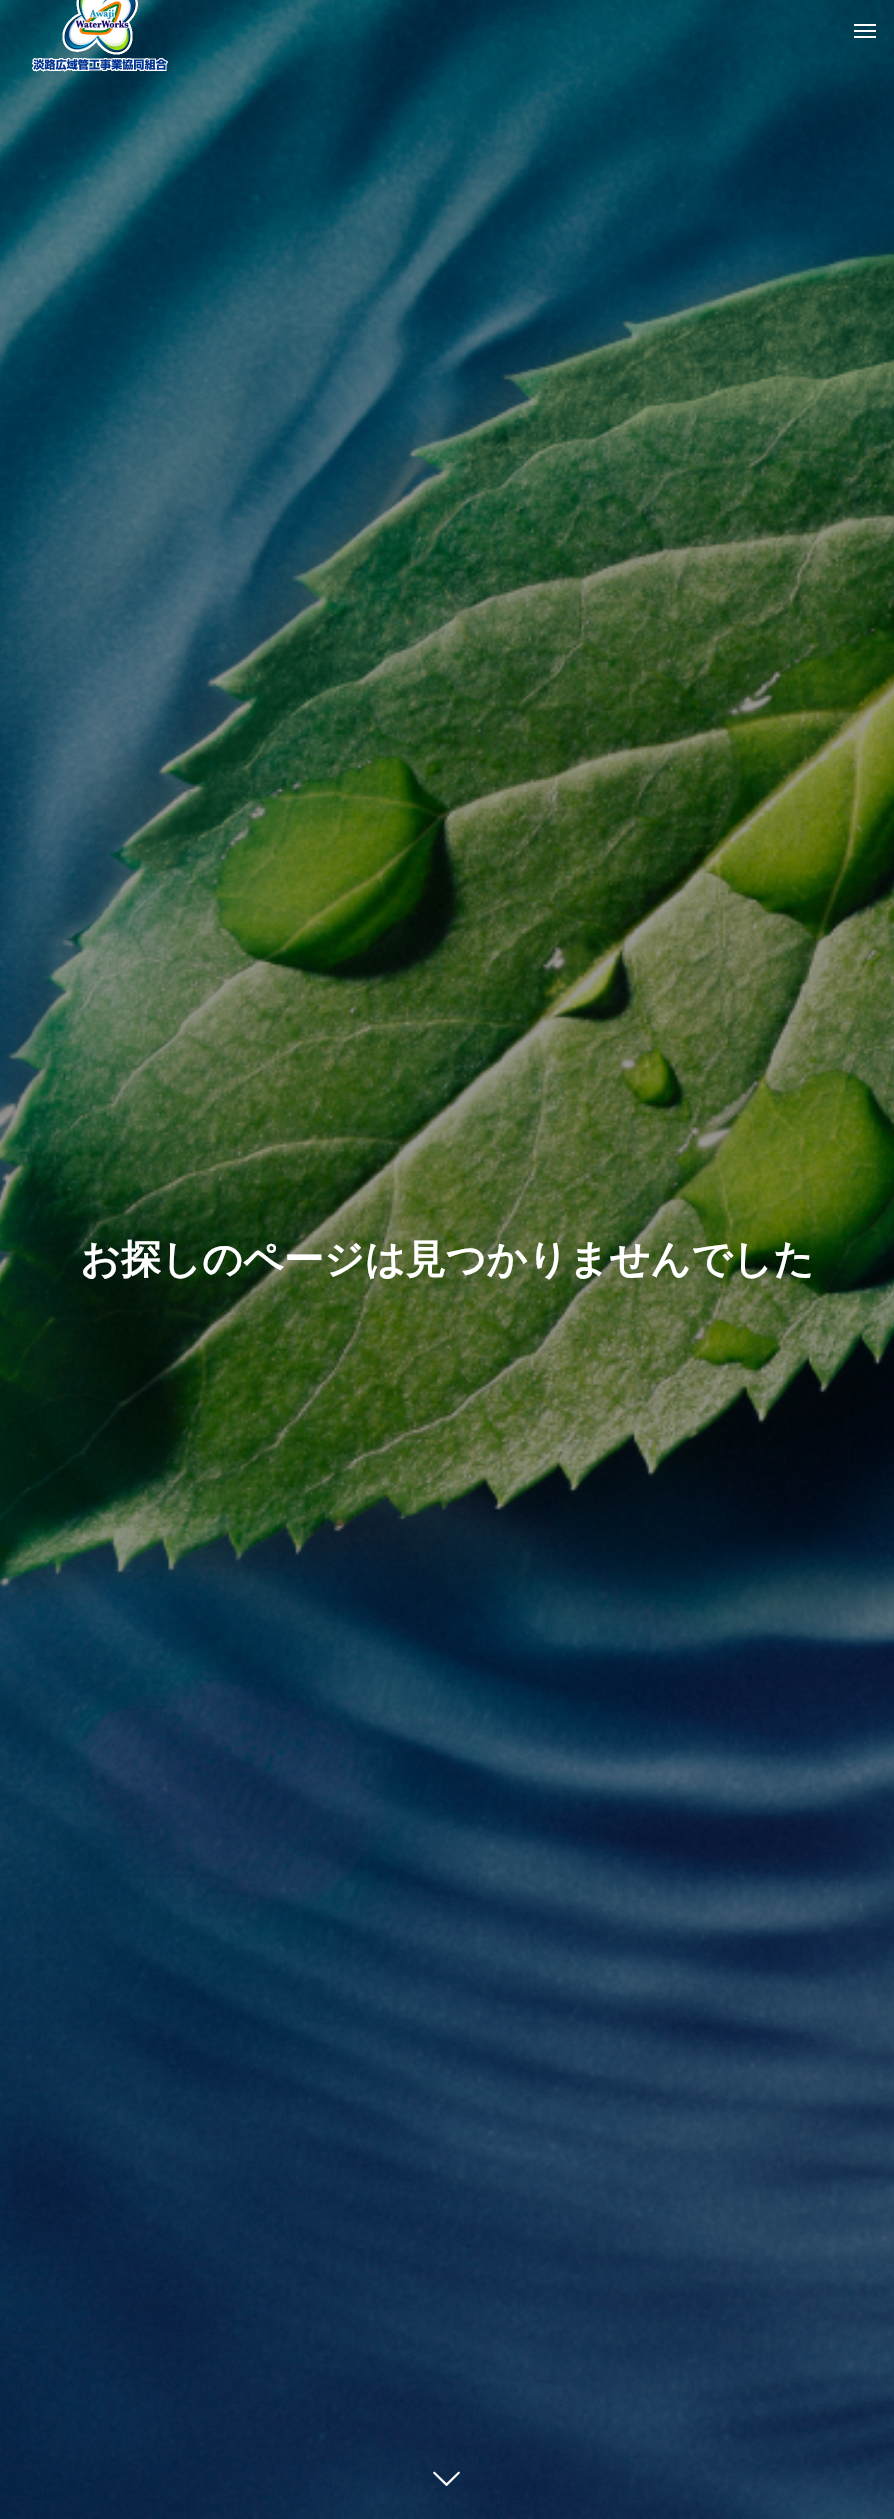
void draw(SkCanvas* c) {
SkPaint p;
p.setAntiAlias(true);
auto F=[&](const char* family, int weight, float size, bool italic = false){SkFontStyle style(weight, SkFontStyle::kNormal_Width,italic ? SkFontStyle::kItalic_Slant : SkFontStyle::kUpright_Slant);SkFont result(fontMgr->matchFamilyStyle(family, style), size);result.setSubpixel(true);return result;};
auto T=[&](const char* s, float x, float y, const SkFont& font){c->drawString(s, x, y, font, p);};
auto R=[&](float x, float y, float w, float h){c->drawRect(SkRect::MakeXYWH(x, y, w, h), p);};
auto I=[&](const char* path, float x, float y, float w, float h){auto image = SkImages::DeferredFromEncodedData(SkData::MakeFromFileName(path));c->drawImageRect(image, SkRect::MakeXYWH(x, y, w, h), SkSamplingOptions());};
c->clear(0xffffffff);
I("2.png",0,0,894,2519);
I("1.png",32,0,136,72);
p.setColor(0xffffffff);
R(854,24,22,2);
R(854,30,22,2);
R(854,36,22,2);
auto f1 = F("WenQuanYi Zen Hei",700,40);
T("お探しのページは見つかりませんでした",80,1273,f1);
I("3.png",433,2471,27,15);
}
